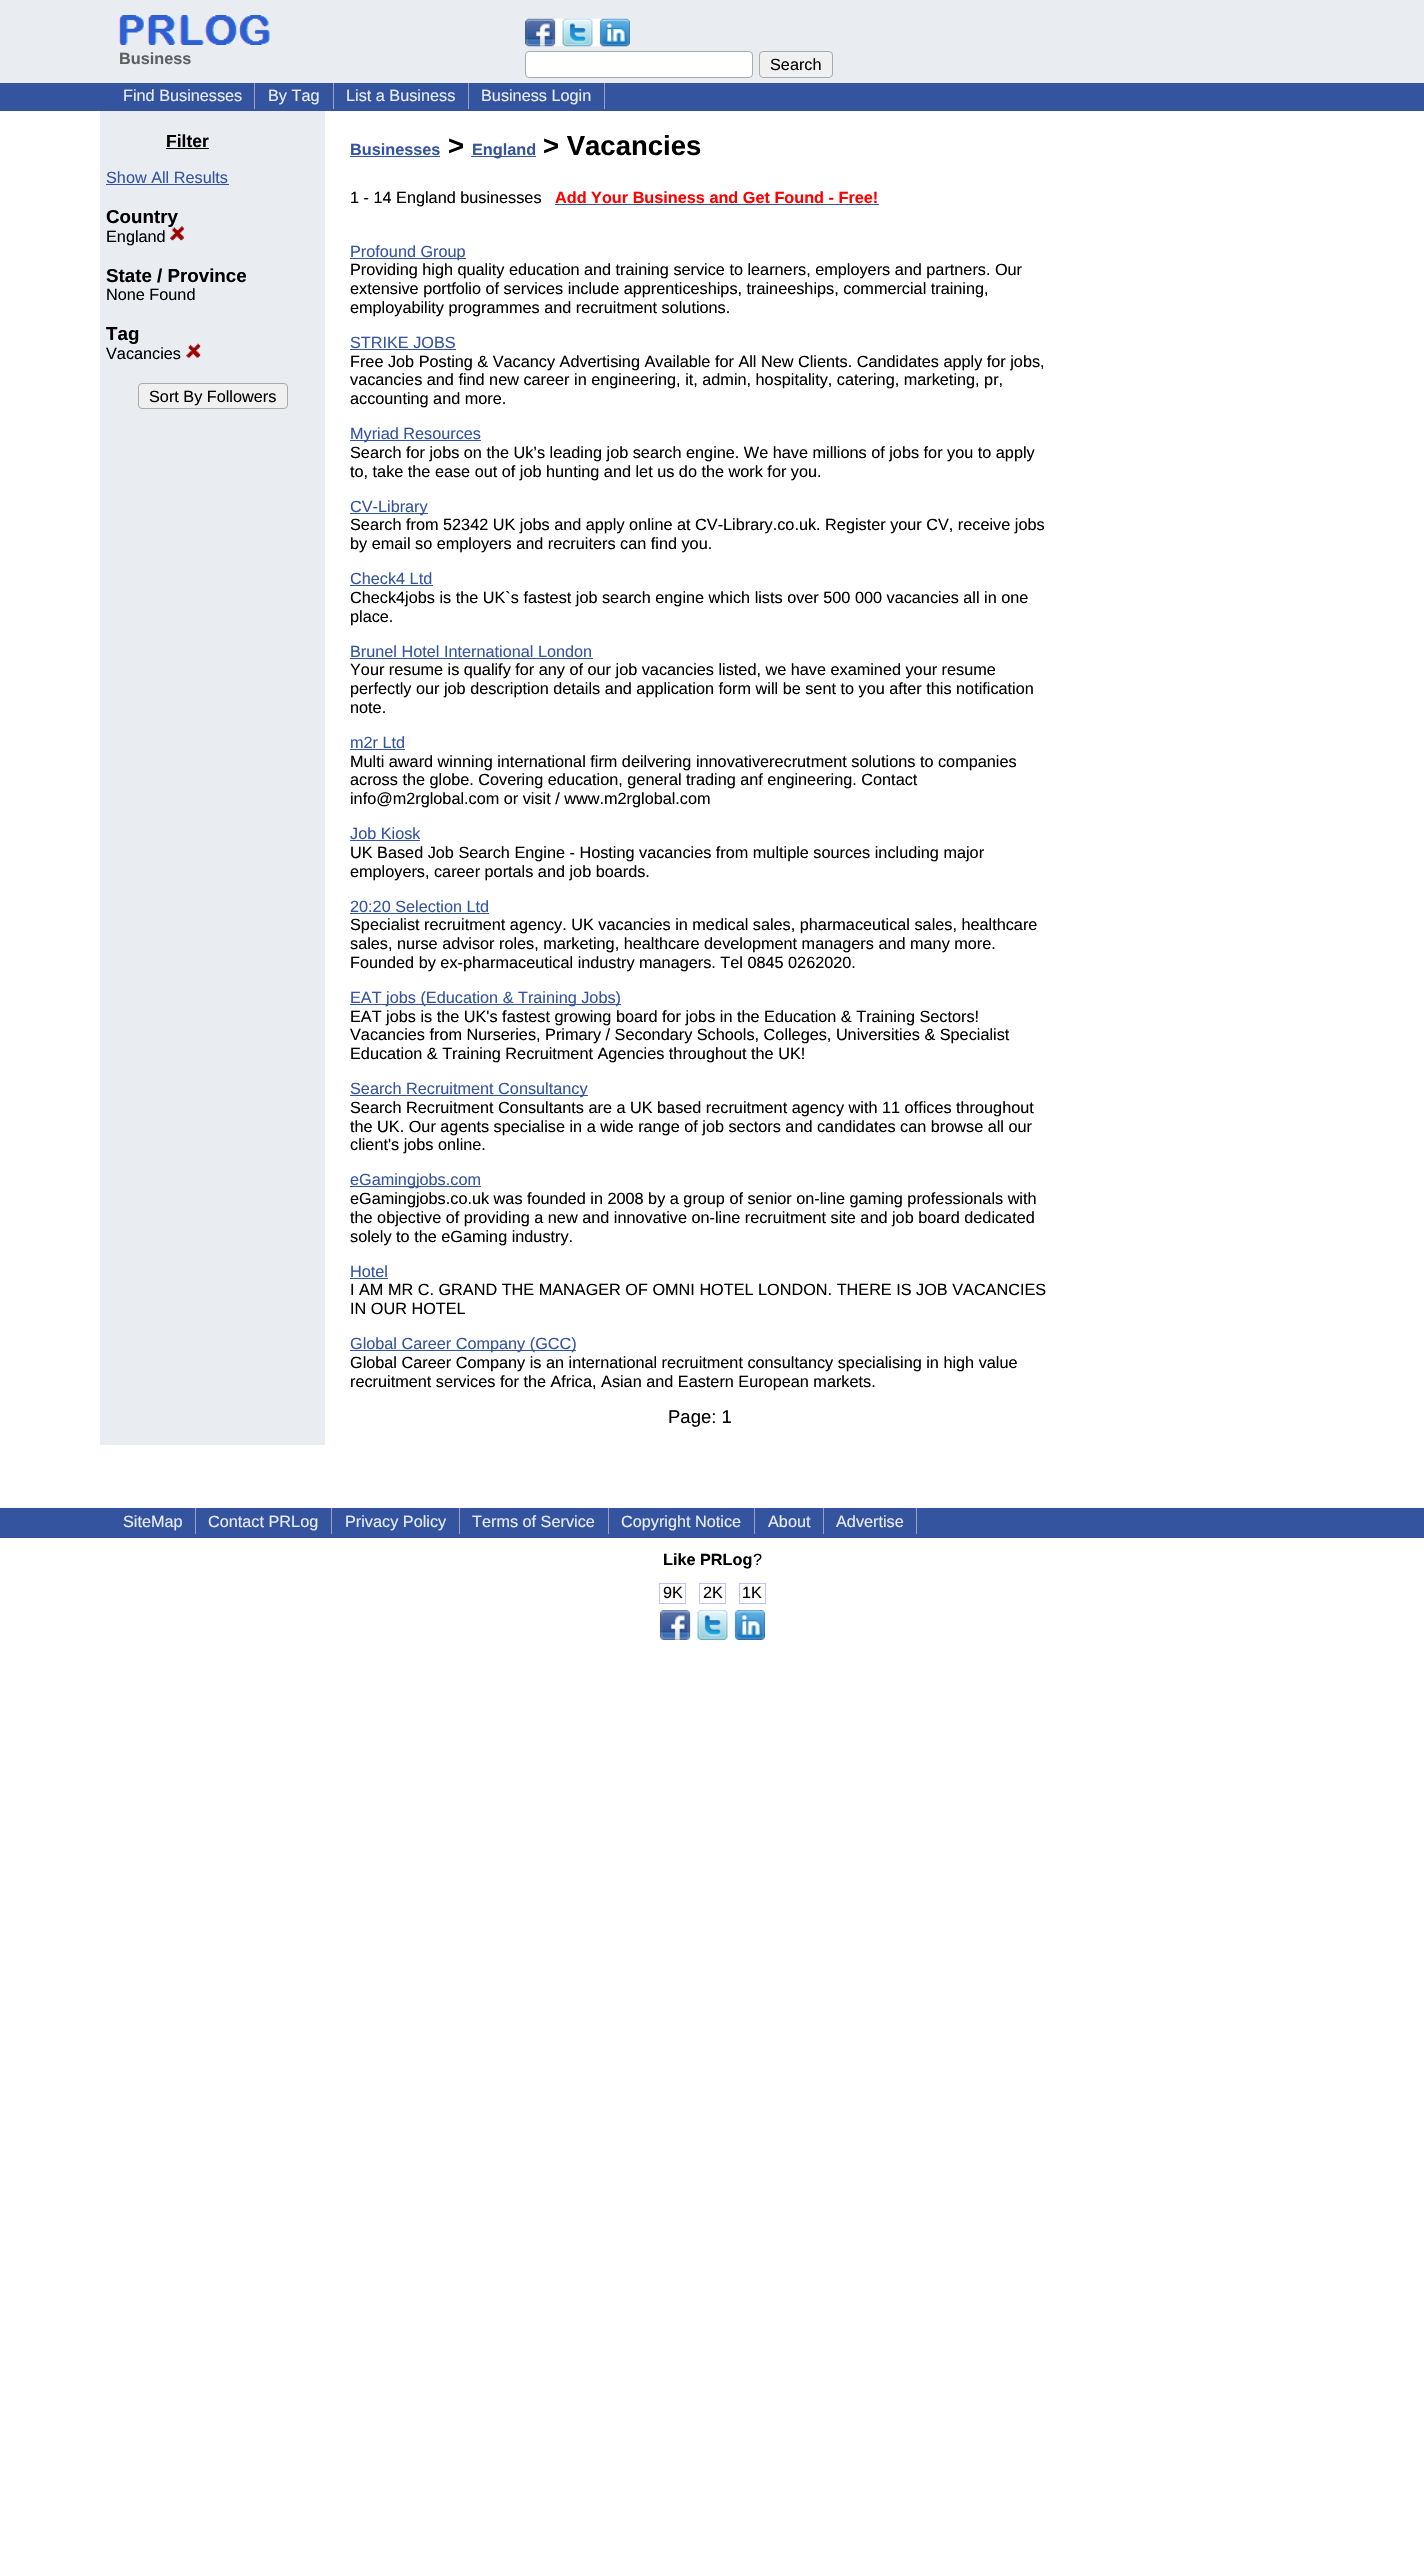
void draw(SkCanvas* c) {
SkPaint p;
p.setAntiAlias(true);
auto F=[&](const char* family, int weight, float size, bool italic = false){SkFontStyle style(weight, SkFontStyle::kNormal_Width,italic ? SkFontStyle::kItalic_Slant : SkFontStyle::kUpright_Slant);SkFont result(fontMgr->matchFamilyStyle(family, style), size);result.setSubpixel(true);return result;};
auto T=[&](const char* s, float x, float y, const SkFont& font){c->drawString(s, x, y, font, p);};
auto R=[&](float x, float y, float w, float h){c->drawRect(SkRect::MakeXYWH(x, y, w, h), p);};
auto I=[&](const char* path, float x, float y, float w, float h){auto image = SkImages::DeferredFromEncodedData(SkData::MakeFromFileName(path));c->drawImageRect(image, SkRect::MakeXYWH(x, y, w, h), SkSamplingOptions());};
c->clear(0xffffffff);
p.setColor(0xffe9edf2);
R(0,0,1424,83);
I("1.png",118,15,152,30);
auto f1 = F("Liberation Sans",700,16.25);
p.setColor(0xff606060);
T("Business",119,64,f1);
I("2.png",525,18,105,29);
p.setColor(0xffffffff);
c->drawRoundRect(SkRect::MakeXYWH(525.5,51.5,227,26),3.5,3.5,p);
p.setStroke(true);
p.setStrokeWidth(1);
p.setColor(0xffaaaaaa);
c->drawRoundRect(SkRect::MakeXYWH(525.5,51.5,227,26),3.5,3.5,p);
p.setStroke(false);
p.setColor(0xfff0f0f0);
c->drawRoundRect(SkRect::MakeXYWH(759.5,51.5,73,26),3.5,3.5,p);
p.setStroke(true);
p.setColor(0xffaaaaaa);
c->drawRoundRect(SkRect::MakeXYWH(759.5,51.5,73,26),3.5,3.5,p);
auto f2 = F("Liberation Sans",400,16.25);
p.setStroke(false);
p.setColor(0xff000000);
T("Search",770,70,f2);
p.setColor(0xff3454a0);
R(0,83,1424,28);
p.setColor(0xffa0a0c0);
R(254,83,1,26);
p.setColor(0xffe9edf2);
T("Find Businesses",123,101,f2);
p.setColor(0xffa0a0c0);
R(333,83,1,26);
p.setColor(0xffe9edf2);
T("By Tag",268,101,f2);
p.setColor(0xffa0a0c0);
R(468,83,1,26);
p.setColor(0xffe9edf2);
T("List a Business",346,101,f2);
p.setColor(0xffa0a0c0);
R(604,83,1,26);
p.setColor(0xffe9edf2);
T("Business Login",481,101,f2);
R(100,111,225,1334);
auto f3 = F("Liberation Sans",700,17.5);
p.setColor(0xff000000);
T("Filter",166,147,f3);
R(166,148,43,1);
p.setColor(0xff3454a0);
T("Show All Results",106,183,f2);
R(106,184,123,1);
auto f4 = F("Liberation Sans",700,18.75);
p.setColor(0xff000000);
T("Country",106,223,f4);
T("England",106,242,f2);
I("3.png",170,226,14,15);
T("State / Province",106,282,f4);
T("None Found",106,300,f2);
T("Tag",106,340,f4);
T("Vacancies",106,359,f2);
I("4.png",186,343,15,15);
p.setColor(0xfff0f0f0);
c->drawRoundRect(SkRect::MakeXYWH(138.5,383.5,149,25),3.5,3.5,p);
p.setStroke(true);
p.setColor(0xffaaaaaa);
c->drawRoundRect(SkRect::MakeXYWH(138.5,383.5,149,25),3.5,3.5,p);
p.setStroke(false);
p.setColor(0xff000000);
T("Sort By Followers",149,402,f2);
p.setColor(0xff3454a0);
T("Businesses",350,155,f1);
R(350,156,90,1);
auto f5 = F("Liberation Sans",700,27.5);
p.setColor(0xff000000);
T(">",448,155,f5);
p.setColor(0xff3454a0);
R(471,156,65,1);
T("England",472,155,f1);
p.setColor(0xff000000);
T("> Vacancies",543,155,f5);
T("1 - 14 England businesses",350,203,f2);
p.setColor(0xffff0000);
T("Add Your Business and Get Found - Free!",555,203,f1);
p.setColor(0xff3454a0);
R(555,204,324,1);
R(350,258,116,1);
T("Profound Group",350,257,f2);
p.setColor(0xff000000);
T("Providing high quality education and training service to learners, employers and partners. Our",350,275,f2);
T("extensive portfolio of services include apprenticeships, traineeships, commercial training,",350,294,f2);
T("employability programmes and recruitment solutions.",350,313,f2);
p.setColor(0xff3454a0);
T("STRIKE JOBS",350,348,f2);
R(350,349,106,1);
p.setColor(0xff000000);
T("Free Job Posting & Vacancy Advertising Available for All New Clients. Candidates apply for jobs,",350,367,f2);
T("vacancies and find new career in engineering, it, admin, hospitality, catering, marketing, pr,",350,385,f2);
T("accounting and more.",350,404,f2);
p.setColor(0xff3454a0);
R(350,440,131,1);
T("Myriad Resources",350,439,f2);
p.setColor(0xff000000);
T("Search for jobs on the Uk’s leading job search engine. We have millions of jobs for you to apply",350,458,f2);
T("to, take the ease out of job hunting and let us do the work for you.",350,477,f2);
p.setColor(0xff3454a0);
R(350,513,78,1);
T("CV-Library",350,512,f2);
p.setColor(0xff000000);
T("Search from 52342 UK jobs and apply online at CV-Library.co.uk. Register your CV, receive jobs",350,530,f2);
T("by email so employers and recruiters can find you.",350,549,f2);
p.setColor(0xff3454a0);
T("Check4 Ltd",350,584,f2);
R(350,585,83,1);
p.setColor(0xff000000);
T("Check4jobs is the UK`s fastest job search engine which lists over 500 000 vacancies all in one",350,603,f2);
T("place.",350,622,f2);
p.setColor(0xff3454a0);
T("Brunel Hotel International London",350,657,f2);
R(350,658,243,1);
p.setColor(0xff000000);
T("Your resume is qualify for any of our job vacancies listed, we have examined your resume",350,675,f2);
T("perfectly our job description details and application form will be sent to you after this notification",350,694,f2);
T("note.",350,713,f2);
p.setColor(0xff3454a0);
T("m2r Ltd",350,748,f2);
R(350,749,55,1);
p.setColor(0xff000000);
T("Multi award winning international firm deilvering innovativerecrutment solutions to companies",350,767,f2);
T("across the globe. Covering education, general trading anf engineering. Contact",350,785,f2);
T("info@m2rglobal.com or visit / www.m2rglobal.com",350,804,f2);
p.setColor(0xff3454a0);
T("Job Kiosk",350,839,f2);
R(350,840,70,1);
p.setColor(0xff000000);
T("UK Based Job Search Engine - Hosting vacancies from multiple sources including major",350,858,f2);
T("employers, career portals and job boards.",350,877,f2);
p.setColor(0xff3454a0);
T("20:20 Selection Ltd",350,912,f2);
R(350,913,139,1);
p.setColor(0xff000000);
T("Specialist recruitment agency. UK vacancies in medical sales, pharmaceutical sales, healthcare",350,930,f2);
T("sales, nurse advisor roles, marketing, healthcare development managers and many more.",350,949,f2);
T("Founded by ex-pharmaceutical industry managers. Tel 0845 0262020.",350,968,f2);
p.setColor(0xff3454a0);
R(350,1004,271,1);
T("EAT jobs (Education & Training Jobs)",350,1003,f2);
p.setColor(0xff000000);
T("EAT jobs is the UK's fastest growing board for jobs in the Education & Training Sectors!",350,1022,f2);
T("Vacancies from Nurseries, Primary / Secondary Schools, Colleges, Universities & Specialist",350,1040,f2);
T("Education & Training Recruitment Agencies throughout the UK!",350,1059,f2);
p.setColor(0xff3454a0);
R(350,1095,238,1);
T("Search Recruitment Consultancy",350,1094,f2);
p.setColor(0xff000000);
T("Search Recruitment Consultants are a UK based recruitment agency with 11 offices throughout",350,1113,f2);
T("the UK. Our agents specialise in a wide range of job sectors and candidates can browse all our",350,1132,f2);
T("client's jobs online.",350,1150,f2);
p.setColor(0xff3454a0);
R(350,1186,131,1);
T("eGamingjobs.com",350,1185,f2);
p.setColor(0xff000000);
T("eGamingjobs.co.uk was founded in 2008 by a group of senior on-line gaming professionals with",350,1204,f2);
T("the objective of providing a new and innovative on-line recruitment site and job board dedicated",350,1223,f2);
T("solely to the eGaming industry.",350,1242,f2);
p.setColor(0xff3454a0);
T("Hotel",350,1277,f2);
R(350,1278,38,1);
p.setColor(0xff000000);
T("I AM MR C. GRAND THE MANAGER OF OMNI HOTEL LONDON. THERE IS JOB VACANCIES",350,1295,f2);
T("IN OUR HOTEL",350,1314,f2);
p.setColor(0xff3454a0);
R(350,1350,226,1);
T("Global Career Company (GCC)",350,1349,f2);
p.setColor(0xff000000);
T("Global Career Company is an international recruitment consultancy specialising in high value",350,1368,f2);
T("recruitment services for the Africa, Asian and Eastern European markets.",350,1387,f2);
auto f6 = F("Liberation Sans",400,18.5);
T("Page: 1",668,1423,f6);
p.setColor(0xff3454a0);
R(0,1508,1424,30);
p.setColor(0xffa0a0c0);
R(195,1508,1,26);
p.setColor(0xffe9edf2);
T("SiteMap",123,1527,f2);
p.setColor(0xffa0a0c0);
R(331,1508,1,26);
p.setColor(0xffe9edf2);
T("Contact PRLog",208,1527,f2);
p.setColor(0xffa0a0c0);
R(459,1508,1,26);
p.setColor(0xffe9edf2);
T("Privacy Policy",345,1527,f2);
p.setColor(0xffa0a0c0);
R(608,1508,1,26);
p.setColor(0xffe9edf2);
T("Terms of Service",472,1527,f2);
p.setColor(0xffa0a0c0);
R(754,1508,1,26);
p.setColor(0xffe9edf2);
T("Copyright Notice",621,1527,f2);
p.setColor(0xffa0a0c0);
R(823,1508,1,26);
p.setColor(0xffe9edf2);
T("About",768,1527,f2);
p.setColor(0xffa0a0c0);
R(916,1508,1,26);
p.setColor(0xffe9edf2);
T("Advertise",836,1527,f2);
p.setColor(0xff000000);
T("Like PRLog",663,1565,f1);
T("?",753,1565,f2);
p.setStroke(true);
p.setColor(0xffc0c0ff);
c->drawRect(SkRect::MakeXYWH(659.5,1583.5,26,20),p);
p.setStroke(false);
p.setColor(0xff000000);
T("9K",663,1598,f2);
p.setStroke(true);
p.setColor(0xffc0c0ff);
c->drawRect(SkRect::MakeXYWH(699.5,1583.5,26,20),p);
p.setStroke(false);
p.setColor(0xff000000);
T("2K",703,1598,f2);
p.setStroke(true);
p.setColor(0xffc0c0ff);
c->drawRect(SkRect::MakeXYWH(739.5,1583.5,26,20),p);
p.setStroke(false);
p.setColor(0xff000000);
T("1K",742,1598,f2);
I("5.png",660,1610,105,30);
}
